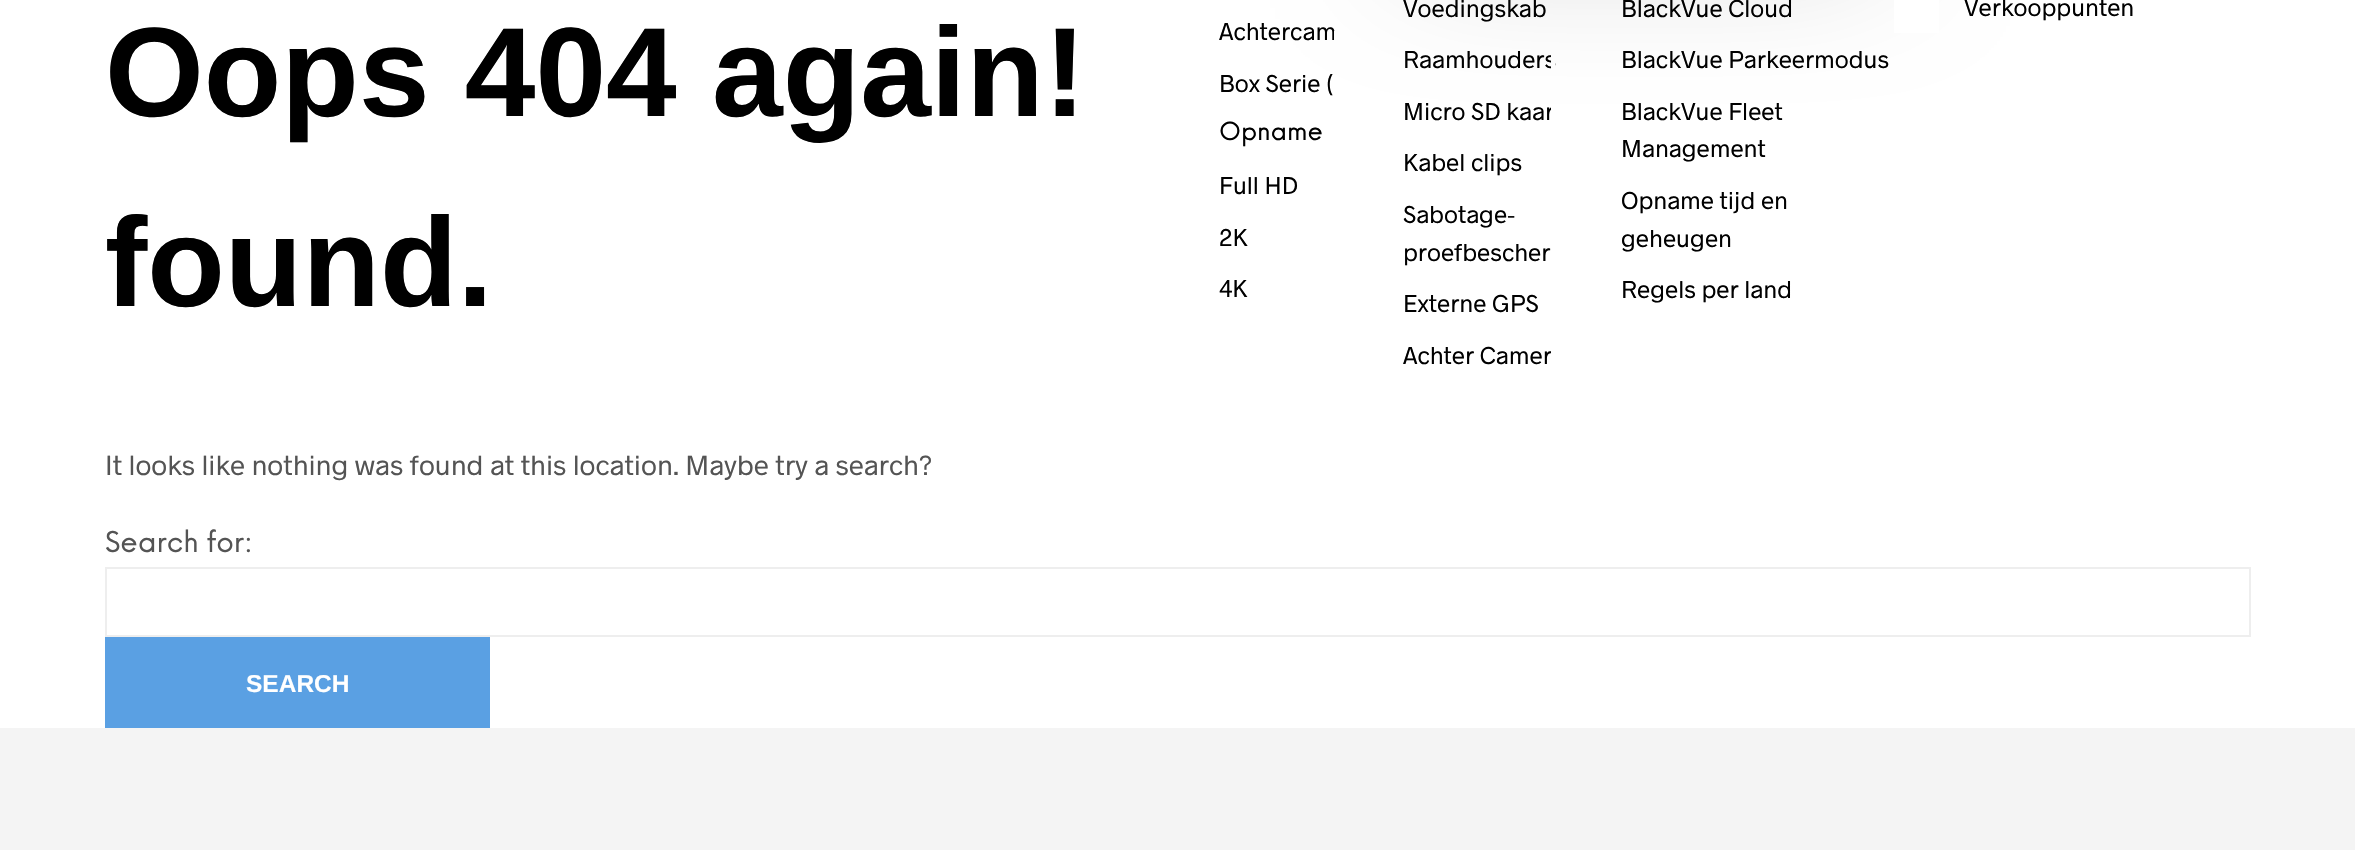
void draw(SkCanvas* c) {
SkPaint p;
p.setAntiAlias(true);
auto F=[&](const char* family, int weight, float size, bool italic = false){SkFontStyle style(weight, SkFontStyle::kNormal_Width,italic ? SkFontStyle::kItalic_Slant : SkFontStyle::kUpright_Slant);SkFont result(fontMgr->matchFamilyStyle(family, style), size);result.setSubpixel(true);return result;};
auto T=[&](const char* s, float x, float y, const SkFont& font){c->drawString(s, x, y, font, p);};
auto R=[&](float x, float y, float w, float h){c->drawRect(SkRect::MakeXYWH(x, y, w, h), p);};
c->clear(0xffffffff);
auto f1 = F("Liberation Sans",700,127);
p.setColor(0xff000000);
T("Oops 404 again!",105,116,f1);
T("found.",105,306,f1);
auto f2 = F("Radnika",400,28);
p.setColor(0xff545454);
T("It looks like nothing was found at this location. Maybe try a search?",105,475,f2);
auto f3 = F("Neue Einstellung",400,28);
T("Search for:",105,552,f3);
p.setStroke(true);
p.setStrokeWidth(2);
p.setColor(0xffeeeeee);
c->drawRect(SkRect::MakeXYWH(106,568,2144,68),p);
p.setStroke(false);
p.setColor(0xff5aa0e3);
R(105,637,385,91);
auto f4 = F("Liberation Sans",700,24.5);
p.setColor(0xffffffff);
T("SEARCH",246,692,f4);
auto f5 = F("Radnika",400,24.5);
p.setColor(0xff000000);
T("Achtercam",1219,40,f5);
p.setColor(0xffffffff);
R(1334,31,1,9);
p.setColor(0xff000000);
T("Voedingskab",1403,17,f5);
T("Raamhouders",1403,68,f5);
T("Micro SD kaar",1403,120,f5);
T("Kabel clips",1403,171,f5);
T("Sabotage-",1403,223,f5);
T("proefbescher",1403,261,f5);
T("Externe GPS",1403,312,f5);
T("Achter Camer",1403,364,f5);
p.setColor(0xffffffff);
R(1551,55,4,299);
p.setColor(0xff000000);
T("BlackVue Cloud",1621,17,f5);
T("BlackVue Parkeermodus",1621,68,f5);
T("BlackVue Fleet",1621,120,f5);
T("Management",1621,157,f5);
T("Opname tijd en",1621,209,f5);
T("geheugen",1621,247,f5);
T("Regels per land",1621,298,f5);
p.setColor(0x4a000000);
p.setMaskFilter(SkMaskFilter::MakeBlur(kNormal_SkBlurStyle, 71));
c->drawRect(SkRect::MakeXYWH(1412,-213,466,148),p);
p.setMaskFilter(nullptr);
p.setColor(0xffffffff);
R(1894,0,45,33);
p.setColor(0xff000000);
T("Verkooppunten",1964,16,f5);
T("Box Serie (",1219,92,f5);
auto f6 = F("Neue Einstellung",400,24.5);
T("Opname",1219,140,f6);
T("Full HD",1219,194,f5);
T("2K",1219,246,f5);
T("4K",1219,297,f5);
p.setColor(0xfff4f4f4);
R(0,728,2355,122);
}
